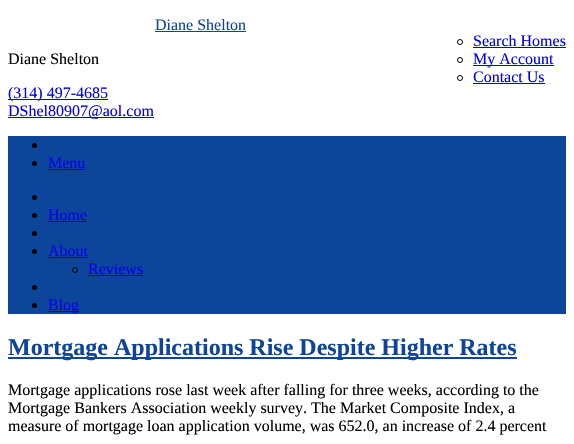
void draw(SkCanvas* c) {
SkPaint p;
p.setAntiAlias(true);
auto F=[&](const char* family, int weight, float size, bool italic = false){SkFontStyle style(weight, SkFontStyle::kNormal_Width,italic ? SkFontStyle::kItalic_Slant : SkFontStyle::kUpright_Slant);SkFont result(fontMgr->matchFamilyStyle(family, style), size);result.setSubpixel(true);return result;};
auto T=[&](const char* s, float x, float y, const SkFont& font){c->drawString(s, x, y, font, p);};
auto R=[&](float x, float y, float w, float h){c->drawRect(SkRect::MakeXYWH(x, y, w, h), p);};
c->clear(0xffffffff);
auto f1 = F("Liberation Serif",400,16);
p.setColor(0xff0d459a);
T("Diane Shelton",155,30,f1);
R(155,31,91,1);
p.setColor(0xff000000);
T("Diane Shelton",8,64,f1);
p.setColor(0xff0000ee);
R(8,99,100,1);
T("(314) 497-4685",8,98,f1);
R(8,117,146,1);
T("DShel80907@aol.com",8,116,f1);
p.setStroke(true);
p.setStrokeWidth(1);
p.setColor(0xff000000);
c->drawCircle(460,42,2.5,p);
p.setStroke(false);
p.setColor(0xff0000ee);
T("Search Homes",473,46,f1);
R(473,47,93,1);
p.setStroke(true);
p.setColor(0xff000000);
c->drawCircle(460,60,2.5,p);
p.setStroke(false);
p.setColor(0xff0000ee);
R(473,65,81,1);
T("My Account",473,64,f1);
p.setStroke(true);
p.setColor(0xff000000);
c->drawCircle(460,78,2.5,p);
p.setStroke(false);
p.setColor(0xff0000ee);
T("Contact Us",473,82,f1);
R(473,83,72,1);
p.setColor(0xff0d459a);
R(8,136,558,178);
p.setColor(0xff000000);
c->drawCircle(34.5,145.5,2.5,p);
c->drawCircle(34.5,163.5,2.5,p);
p.setColor(0xff0000ee);
T("Menu",48,168,f1);
R(48,169,37,1);
p.setColor(0xff000000);
c->drawCircle(34.5,197.5,2.5,p);
c->drawCircle(34.5,215.5,2.5,p);
p.setColor(0xff0000ee);
T("Home",48,220,f1);
R(48,221,39,1);
p.setColor(0xff000000);
c->drawCircle(34.5,233.5,2.5,p);
c->drawCircle(34.5,251.5,2.5,p);
p.setColor(0xff0000ee);
T("About",48,256,f1);
R(48,257,40,1);
p.setStroke(true);
p.setColor(0xff000000);
c->drawCircle(75,270,2.5,p);
p.setStroke(false);
p.setColor(0xff0000ee);
T("Reviews",88,274,f1);
R(88,275,55,1);
p.setColor(0xff000000);
c->drawCircle(34.5,287.5,2.5,p);
c->drawCircle(34.5,305.5,2.5,p);
p.setColor(0xff0000ee);
R(48,311,31,1);
T("Blog",48,310,f1);
p.setColor(0xff0d459a);
R(8,357,509,2);
auto f2 = F("Liberation Serif",700,24);
T("Mortgage Applications Rise Despite Higher Rates",8,355,f2);
p.setColor(0xff000000);
T("Mortgage applications rose last week after falling for three weeks, according to the",8,395,f1);
T("Mortgage Bankers Association weekly survey. The Market Composite Index, a",8,413,f1);
T("measure of mortgage loan application volume, was 652.0, an increase of 2.4 percent",8,431,f1);
}
